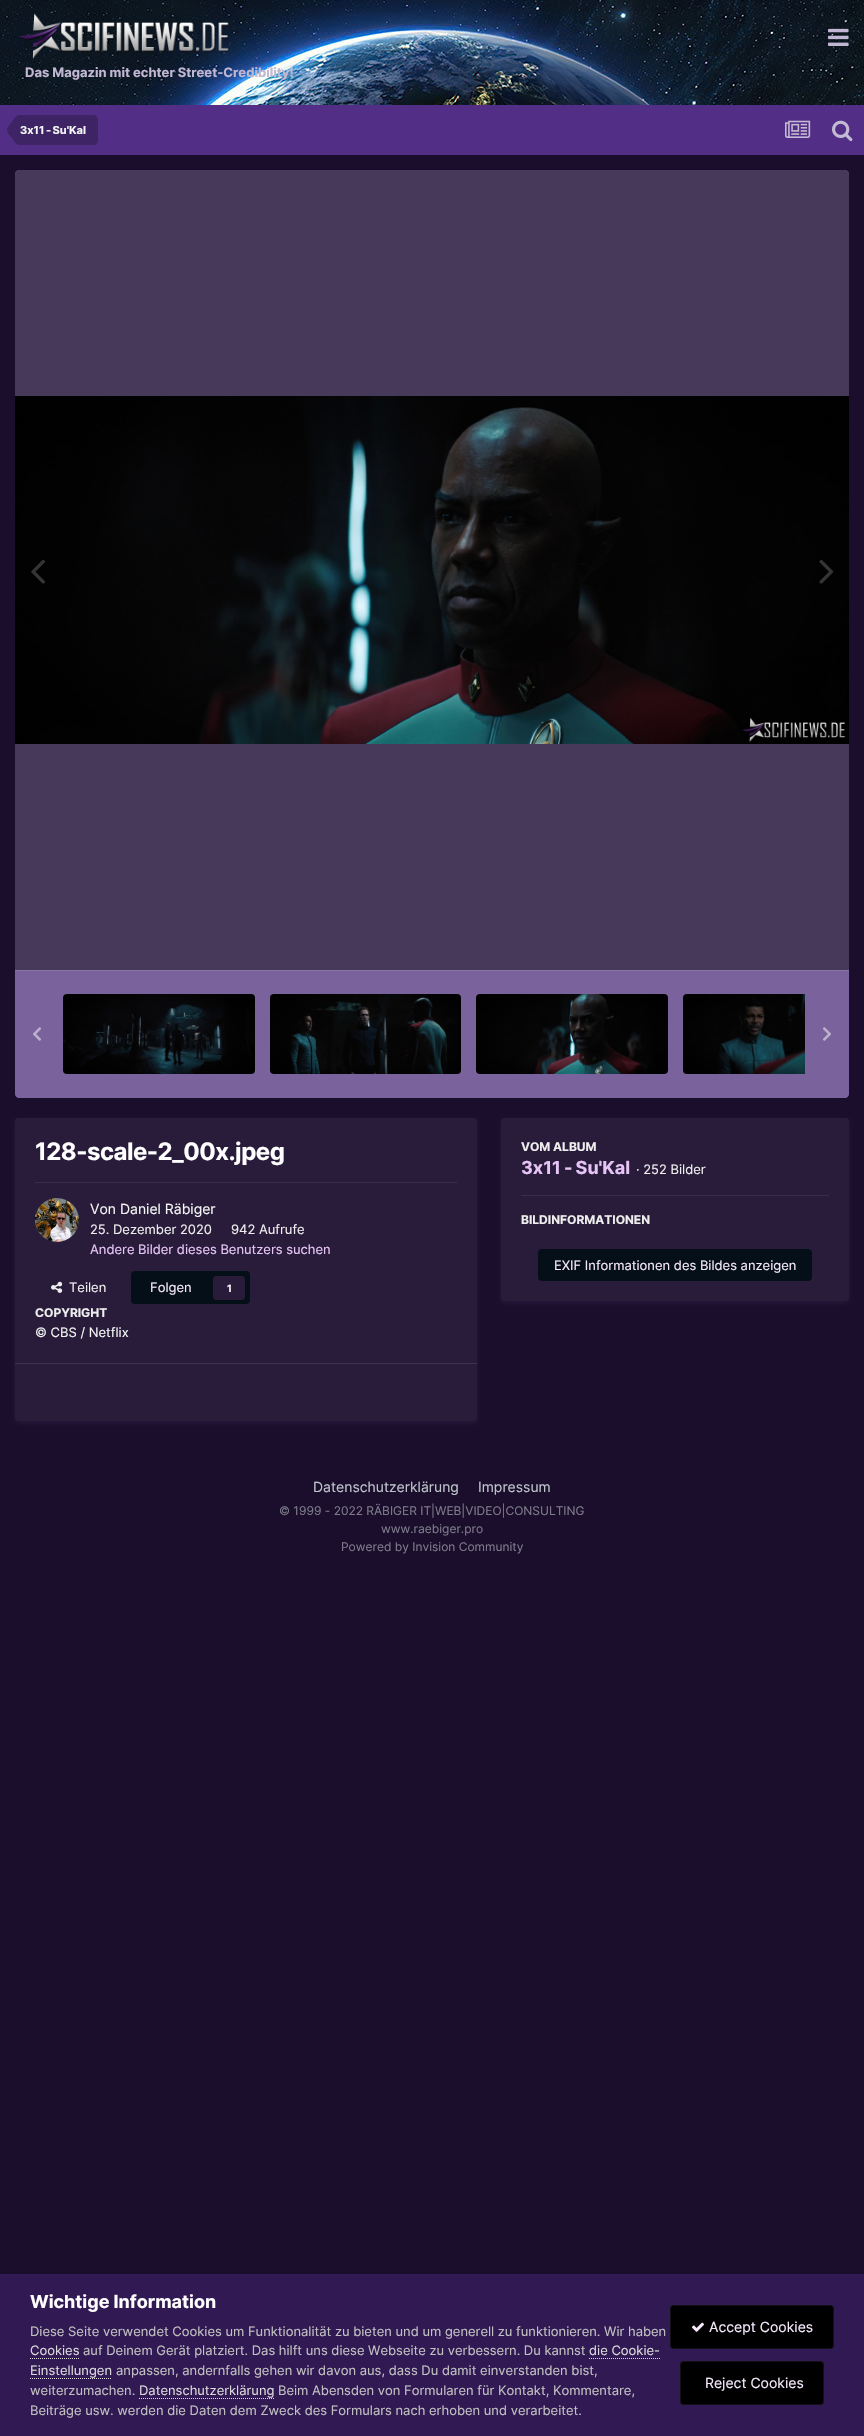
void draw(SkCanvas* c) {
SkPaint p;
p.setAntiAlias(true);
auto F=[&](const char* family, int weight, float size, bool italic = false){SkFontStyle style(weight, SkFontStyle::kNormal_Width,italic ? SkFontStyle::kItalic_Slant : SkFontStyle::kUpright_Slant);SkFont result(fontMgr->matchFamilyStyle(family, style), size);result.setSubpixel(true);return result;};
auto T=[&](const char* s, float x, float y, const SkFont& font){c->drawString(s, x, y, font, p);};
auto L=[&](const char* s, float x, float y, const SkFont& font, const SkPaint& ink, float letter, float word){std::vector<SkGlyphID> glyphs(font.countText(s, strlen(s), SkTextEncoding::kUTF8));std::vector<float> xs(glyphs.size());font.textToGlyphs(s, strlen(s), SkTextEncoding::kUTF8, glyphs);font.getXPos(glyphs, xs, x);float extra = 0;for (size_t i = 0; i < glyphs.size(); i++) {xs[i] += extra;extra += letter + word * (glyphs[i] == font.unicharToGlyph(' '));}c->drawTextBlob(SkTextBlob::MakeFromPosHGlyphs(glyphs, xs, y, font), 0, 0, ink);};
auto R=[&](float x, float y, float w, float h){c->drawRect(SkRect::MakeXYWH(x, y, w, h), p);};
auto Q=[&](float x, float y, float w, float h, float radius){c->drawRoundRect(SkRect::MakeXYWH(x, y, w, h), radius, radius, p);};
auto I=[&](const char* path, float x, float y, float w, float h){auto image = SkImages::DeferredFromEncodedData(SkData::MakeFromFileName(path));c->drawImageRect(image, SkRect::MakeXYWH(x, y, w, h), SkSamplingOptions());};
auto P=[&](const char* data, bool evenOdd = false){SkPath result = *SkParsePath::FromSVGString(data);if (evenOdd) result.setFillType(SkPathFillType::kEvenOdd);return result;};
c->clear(0xff1b0e2d);
I("1.png",0,0,864,105);
I("2.png",18,13,212,46);
I("3.png",828,28,21,18);
auto f1 = F("Inter",700,13);
p.setColor(0xffc1b7d2);
T("Das Magazin mit echter Street-Credibility!",25,77,f1);
p.setColor(0xff522e87);
R(0,105,864,50);
p.setColor(0xff3e2365);
c->drawPath(P("M20 115h73c3 0 5 2 5 5v20c0 3-2 5-5 5h-73z"),p);
c->drawPath(P("M20 130v15c-4.5 0-6.5-4.5-9-8c-1.5-2-4-4-4-7zm0 0h-13c0-3 2.5-5 4-7c2.5-3.5 4.5-8 9-8z"),p);
auto f2 = F("Inter",700,11);
p.setColor(0xfff3f6f4);
L("3x11 - Su'Kal",20,134,f2,p,0,-1);
I("4.png",785,120,26,18);
I("5.png",832,120,21,22);
p.setColor(0xffaf8ee0);
c->drawPath(P("M19 170h826c2 0 4 2 4 4v796h-834v-796c0-2 2-4 4-4z"),p);
p.setColor(0x99000000);
c->drawPath(P("M19 170h826c2 0 4 2 4 4v796h-834v-796c0-2 2-4 4-4z"),p);
I("6.png",15,396,834,348);
I("7.png",31,559,14,25);
I("8.png",819,559,15,25);
p.setColor(0xffaf8ee0);
c->drawPath(P("M15 970h834v124c0 2-2 4-4 4h-826c-2 0-4-2-4-4z"),p);
p.setColor(0x4d000000);
c->drawPath(P("M15 970h834v124c0 2-2 4-4 4h-826c-2 0-4-2-4-4z"),p);
p.setColor(0xff8873a7);
R(15,970,834,1);
I("9.png",63,994,192,80);
I("10.png",270,994,191,80);
I("11.png",476,994,192,80);
I("12.png",683,994,122,80);
I("13.png",33,1027,8,14);
I("14.png",823,1027,8,14);
p.setColor(0x1aaf8ee0);
p.setMaskFilter(SkMaskFilter::MakeBlur(kNormal_SkBlurStyle, 2));
c->drawRoundRect(SkRect::MakeXYWH(16,1121,460,301),3,3,p);
p.setMaskFilter(nullptr);
p.setColor(0xff291c3b);
Q(15,1118,462,303,4);
auto f3 = F("Inter",700,24);
p.setColor(0xffffffff);
L("128-scale-2_00x.jpeg",35,1160,f3,p,-.5,0);
p.setColor(0xff392d4a);
R(35,1182,422,1);
I("15.png",35,1198,44,44);
auto f4 = F("Inter",400,14);
p.setColor(0xfff3f6f4);
T("Von Daniel Räbiger",90,1214,f4);
auto f5 = F("Inter",400,13);
p.setColor(0xffeeeeee);
T("25. Dezember 2020",90,1234,f5);
T("942 Aufrufe",231,1234,f5);
p.setColor(0xffe6c4f5);
T("Andere Bilder dieses Benutzers suchen",90,1254,f5);
I("16.png",51,1281,12,12);
p.setColor(0xffeeeeee);
T("Teilen",69,1292,f5);
p.setColor(0xff050f17);
Q(131,1271,119,33,4);
p.setColor(0xfff6e8fc);
T("Folgen",150,1292,f5);
p.setColor(0xff291c3b);
Q(213,1276,32,24,4);
auto f6 = F("Inter",700,10);
p.setColor(0xfff3f6f4);
T("1",227,1292,f6);
auto f7 = F("Inter",700,12);
p.setColor(0xffeeeeee);
T("COPYRIGHT",35,1317,f7);
p.setColor(0xfff3f6f4);
T("© CBS / Netflix",35,1337,f5);
p.setColor(0xff3d324e);
R(15,1363,462,1);
p.setColor(0x1aaf8ee0);
p.setMaskFilter(SkMaskFilter::MakeBlur(kNormal_SkBlurStyle, 2));
c->drawRoundRect(SkRect::MakeXYWH(502,1121,346,181),3,3,p);
p.setMaskFilter(nullptr);
p.setColor(0xff291c3b);
Q(501,1118,348,183,4);
p.setColor(0xffeeeeee);
T("VOM ALBUM",521,1151,f7);
auto f8 = F("Inter",700,18);
p.setColor(0xffe6c4f5);
L("3x11 - Su'Kal",521,1174,f8,p,0,-1);
p.setColor(0xffeeeeee);
T("· 252 Bilder",636,1174,f5);
p.setColor(0xff392d4a);
R(521,1195,308,1);
p.setColor(0xffeeeeee);
T("BILDINFORMATIONEN",521,1224,f7);
p.setColor(0xff050f17);
Q(538,1249,274,32,4);
p.setColor(0xfff6e8fc);
T("EXIF Informationen des Bildes anzeigen",554,1270,f5);
p.setColor(0xffbec5ca);
T("Datenschutzerklärung",313,1492,f4);
T("Impressum",478,1492,f4);
auto f9 = F("Inter",400,12);
p.setColor(0xff7d7c8b);
T("© 1999 - 2022 RÄBIGER IT|WEB|VIDEO|CONSULTING",279,1515,f9);
T("www.raebiger.pro",381,1533,f9);
T("Powered by Invision Community",341,1551,f9);
p.setColor(0xff311953);
R(0,2274,864,162);
p.setColor(0xffffffff);
T("Wichtige Information",30,2308,f8);
p.setColor(0xffc0c0c0);
T("Diese Seite verwendet Cookies um Funktionalität zu bieten und um generell zu funktionieren. Wir haben",30,2336,f5);
p.setColor(0xffdadada);
T("Cookies",30,2355,f5);
p.setStroke(true);
p.setStrokeWidth(1);
p.setPathEffect(SkDashPathEffect::Make({{1,1}}, 0));
c->drawPath(P("M30 2358.5h50"),p);
p.setPathEffect(nullptr);
p.setStroke(false);
p.setColor(0xffc0c0c0);
T("auf Deinem Gerät platziert. Das hilft uns diese Webseite zu verbessern. Du kannst",83,2355,f5);
p.setColor(0xffdadada);
T("die Cookie-",589,2355,f5);
p.setStroke(true);
p.setPathEffect(SkDashPathEffect::Make({{1,1}}, 0));
c->drawPath(P("M589 2358.5h71"),p);
p.setPathEffect(nullptr);
p.setStroke(false);
T("Einstellungen",30,2375,f5);
p.setStroke(true);
p.setPathEffect(SkDashPathEffect::Make({{1,1}}, 0));
c->drawPath(P("M30 2378.5h82"),p);
p.setPathEffect(nullptr);
p.setStroke(false);
p.setColor(0xffc0c0c0);
T("anpassen, andernfalls gehen wir davon aus, dass Du damit einverstanden bist,",116,2375,f5);
T("weiterzumachen.",30,2395,f5);
p.setColor(0xffdadada);
T("Datenschutzerklärung",139,2395,f5);
p.setStroke(true);
p.setPathEffect(SkDashPathEffect::Make({{1,1}}, 0));
c->drawPath(P("M139 2398.5h135"),p);
p.setPathEffect(nullptr);
p.setStroke(false);
p.setColor(0xffc0c0c0);
T("Beim Abensden von Formularen für Kontakt, Kommentare,",278,2395,f5);
T("Beiträge usw. werden die Daten dem Zweck des Formulars nach erhoben und verarbeitet.",30,2415,f5);
p.setColor(0xff000000);
Q(670,2305,164,44,4);
p.setStroke(true);
p.setColor(0x12f6e8fc);
c->drawRoundRect(SkRect::MakeXYWH(670.5,2305.5,163,43),3.5,3.5,p);
I("17.png",692,2322,12,10);
p.setStroke(false);
p.setColor(0xfff6e8fc);
T("Accept Cookies",709,2332,f4);
p.setColor(0xff000000);
Q(680,2361,144,44,4);
p.setStroke(true);
p.setColor(0x12f6e8fc);
c->drawRoundRect(SkRect::MakeXYWH(680.5,2361.5,143,43),3.5,3.5,p);
p.setStroke(false);
p.setColor(0xfff6e8fc);
T("Reject Cookies",705,2388,f4);
}
